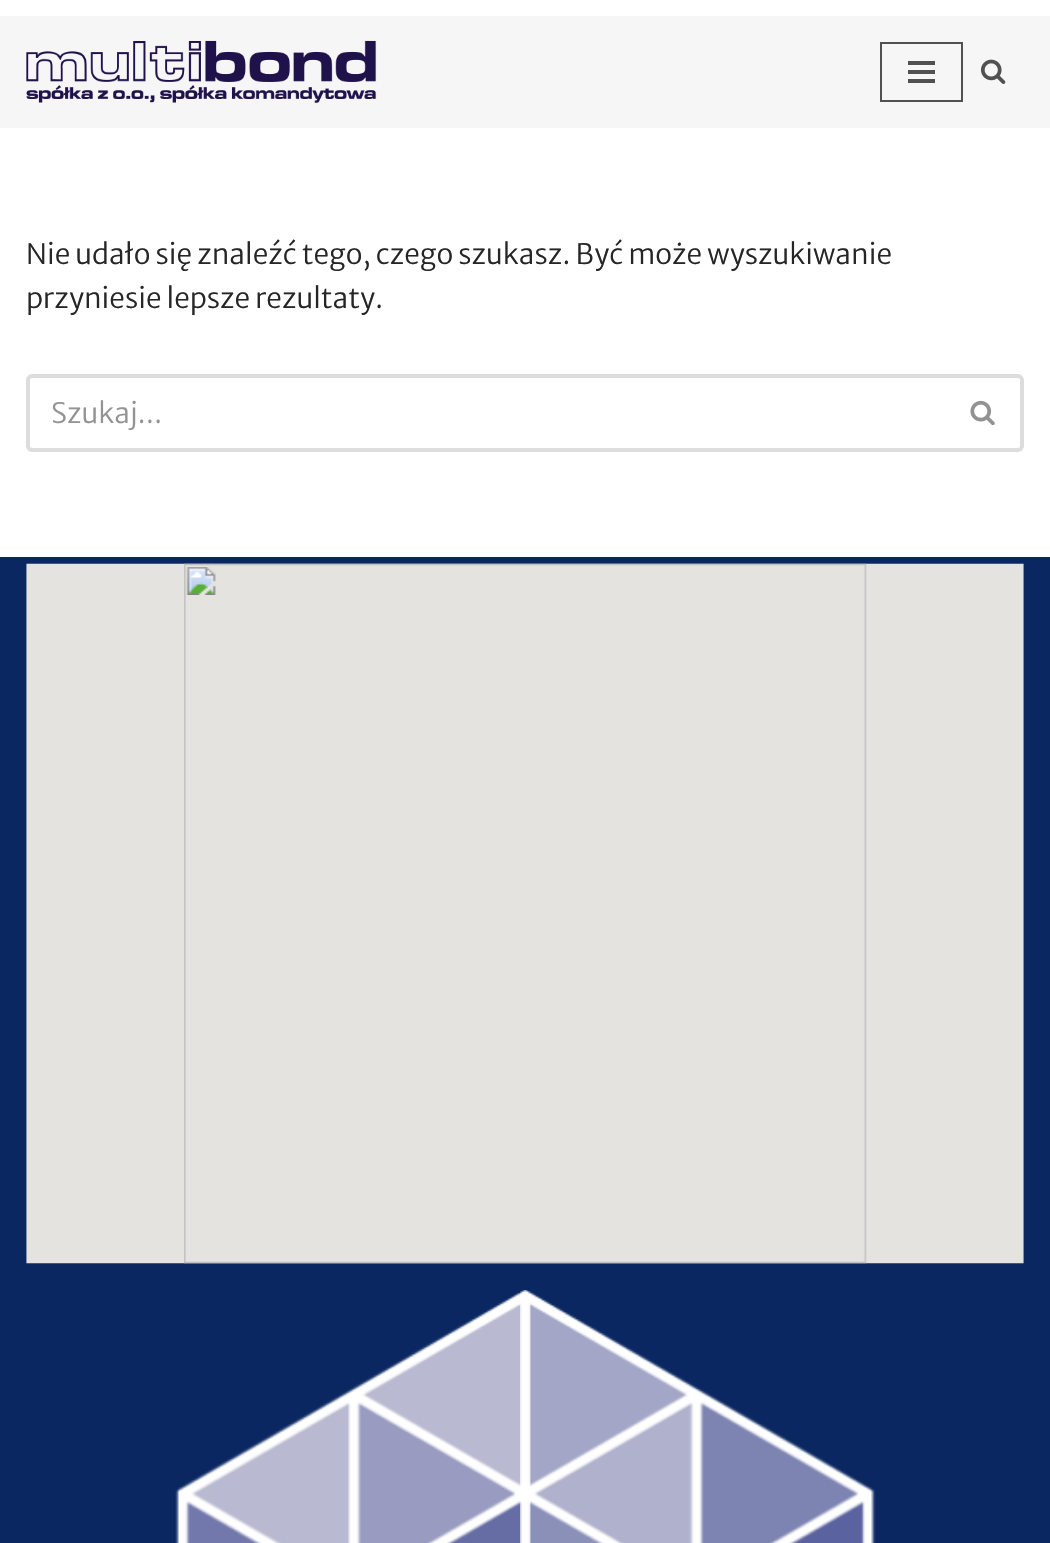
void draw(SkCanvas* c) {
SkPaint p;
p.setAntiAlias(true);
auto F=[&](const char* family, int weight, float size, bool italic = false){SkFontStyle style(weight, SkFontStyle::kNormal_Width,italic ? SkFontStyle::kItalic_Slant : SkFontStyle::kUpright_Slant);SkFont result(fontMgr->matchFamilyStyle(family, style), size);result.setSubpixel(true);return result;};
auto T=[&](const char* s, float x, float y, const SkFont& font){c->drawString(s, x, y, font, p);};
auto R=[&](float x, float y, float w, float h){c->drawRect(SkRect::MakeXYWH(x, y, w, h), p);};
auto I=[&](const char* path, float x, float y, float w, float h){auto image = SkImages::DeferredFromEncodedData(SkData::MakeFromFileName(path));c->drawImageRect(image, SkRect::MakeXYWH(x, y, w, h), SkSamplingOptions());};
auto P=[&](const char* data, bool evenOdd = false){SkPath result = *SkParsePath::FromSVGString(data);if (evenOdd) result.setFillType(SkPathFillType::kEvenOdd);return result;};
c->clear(0xffffffff);
p.setColor(0xfff6f6f6);
R(0,16,1050,112);
I("1.png",26,40,351,64);
p.setStroke(true);
p.setStrokeWidth(2);
p.setColor(0xff515151);
c->drawRect(SkRect::MakeXYWH(881,43,81,58),p);
p.setStroke(false);
R(908,61,27,4);
R(908,70,27,4);
R(908,79,27,4);
I("2.png",981,59,25,25);
auto f1 = F("Merriweather Sans",300,28);
p.setColor(0xff272626);
T("Nie udało się znaleźć tego, czego szukasz. Być może wyszukiwanie",26,264,f1);
T("przyniesie lepsze rezultaty.",26,308,f1);
p.setColor(0xffdddddd);
c->drawPath(P("M32 374h913v78h-913c-3 0-6-3-6-6v-66c0-3 3-6 6-6zm0 4h913v70h-913c-1 0-2-1-2-2v-66c0-1 1-2 2-2z",true),p);
p.setColor(0xff939393);
T("Szukaj...",51,423,f1);
p.setColor(0xffdddddd);
c->drawPath(P("M945 374h73c3 0 6 3 6 6v66c0 3-3 6-6 6h-73zm0 4h73c1 0 2 1 2 2v66c0 1-1 2-2 2h-73z",true),p);
I("3.png",970,400,25,25);
p.setColor(0xff0a2761);
R(0,557,1050,986);
I("4.png",26,563,998,701);
I("5.png",175,1290,701,253);
}
